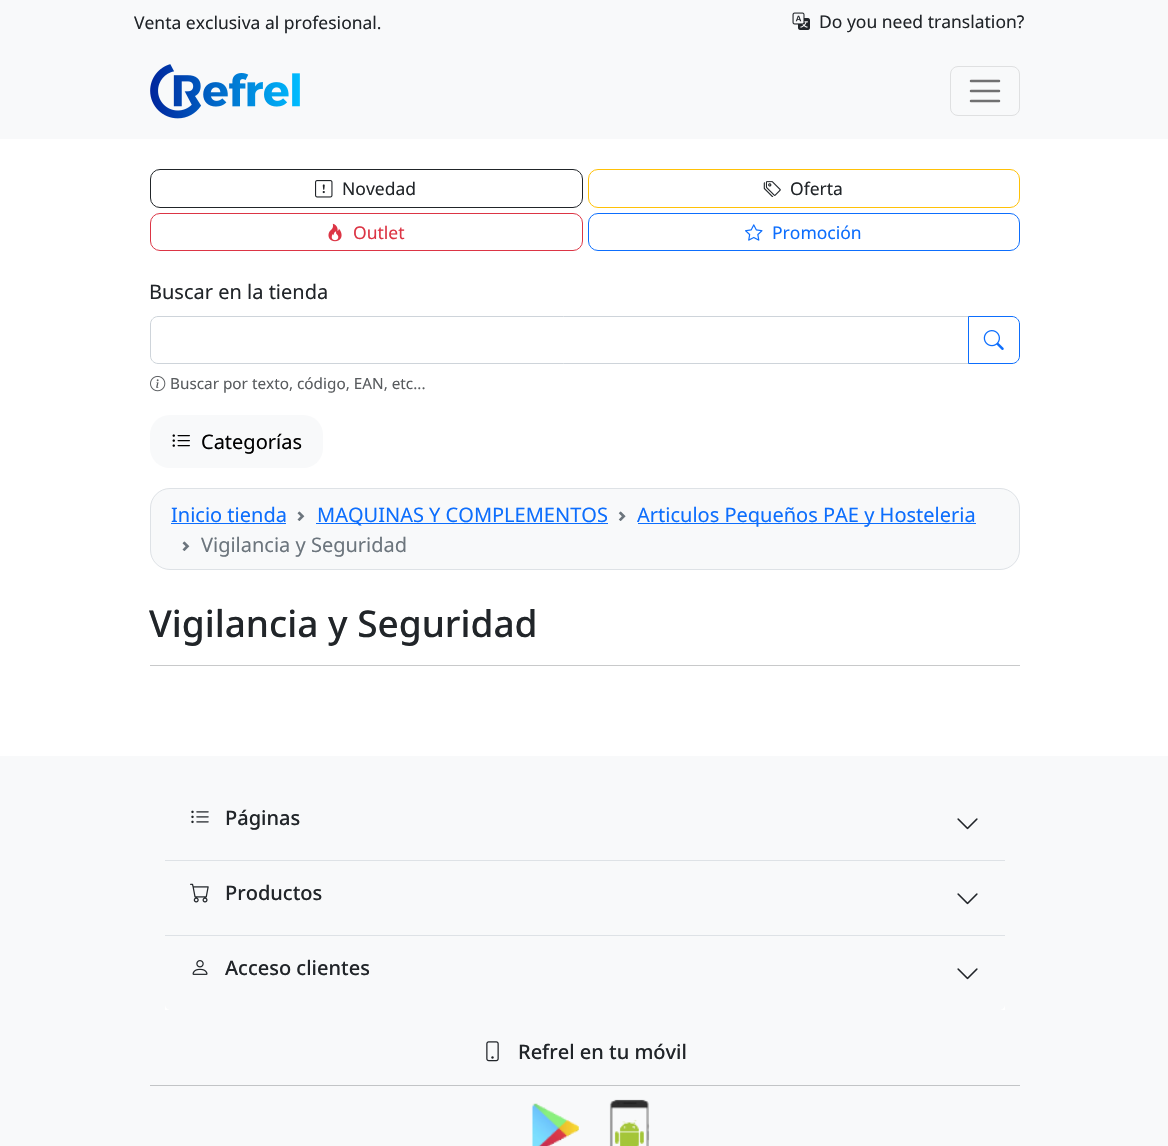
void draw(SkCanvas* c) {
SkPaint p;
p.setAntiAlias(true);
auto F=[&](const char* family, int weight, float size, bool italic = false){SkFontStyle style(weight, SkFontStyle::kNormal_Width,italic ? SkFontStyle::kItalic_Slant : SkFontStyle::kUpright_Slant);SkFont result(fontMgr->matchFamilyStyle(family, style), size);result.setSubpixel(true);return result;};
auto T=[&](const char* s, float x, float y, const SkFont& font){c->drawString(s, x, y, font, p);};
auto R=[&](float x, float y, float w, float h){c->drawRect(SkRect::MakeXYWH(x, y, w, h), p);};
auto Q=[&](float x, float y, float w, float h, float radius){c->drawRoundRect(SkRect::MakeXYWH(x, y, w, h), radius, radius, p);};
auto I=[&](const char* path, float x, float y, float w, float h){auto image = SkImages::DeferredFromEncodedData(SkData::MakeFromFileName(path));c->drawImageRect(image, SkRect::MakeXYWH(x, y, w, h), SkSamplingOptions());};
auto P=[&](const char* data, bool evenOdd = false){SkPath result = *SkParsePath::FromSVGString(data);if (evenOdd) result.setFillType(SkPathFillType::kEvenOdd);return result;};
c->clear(0xffffffff);
p.setColor(0xfff8f9fa);
R(0,0,1168,139);
auto f1 = F("Noto Sans",400,17.5);
p.setColor(0xff212529);
T("Venta exclusiva al profesional.",134,29,f1);
I("1.png",792,12,18,18);
T("Do you need translation?",819,28,f1);
I("2.png",150,64,150,55);
p.setStroke(true);
p.setStrokeWidth(1);
p.setColor(0xffdfe0e1);
c->drawRoundRect(SkRect::MakeXYWH(950.5,66.5,69,49),7.5,7.5,p);
p.setStrokeWidth(2.5);
p.setStrokeCap(SkPaint::kRound_Cap);
p.setColor(0xff707071);
c->drawPath(P("M971 81h28m-28 10h28m-28 10h28"),p);
p.setStrokeWidth(1);
p.setStrokeCap(SkPaint::kButt_Cap);
p.setColor(0xff212529);
c->drawRoundRect(SkRect::MakeXYWH(150.5,169.5,432,38),9.5,9.5,p);
I("3.png",315,180,18,18);
p.setStroke(false);
T("Novedad",342,195,f1);
p.setStroke(true);
p.setColor(0xffffc107);
c->drawRoundRect(SkRect::MakeXYWH(588.5,169.5,431,38),9.5,9.5,p);
I("4.png",763,181,18,16);
p.setStroke(false);
p.setColor(0xff212529);
T("Oferta",790,195,f1);
p.setStroke(true);
p.setColor(0xffdc3545);
c->drawRoundRect(SkRect::MakeXYWH(150.5,213.5,432,37),9.5,9.5,p);
I("5.png",328,223,14,19);
p.setStroke(false);
T("Outlet",353,239,f1);
p.setStroke(true);
p.setColor(0xff0d6efd);
c->drawRoundRect(SkRect::MakeXYWH(588.5,213.5,431,37),9.5,9.5,p);
I("6.png",745,224,18,17);
p.setStroke(false);
T("Promoción",772,239,f1);
auto f2 = F("Noto Sans",400,20);
p.setColor(0xff212529);
T("Buscar en la tienda",149,299,f2);
p.setStroke(true);
p.setColor(0xffced4da);
c->drawPath(P("M158 316.5h810.5v47h-810.5c-4 0-7.5-3.5-7.5-7.5v-32c0-4 3.5-7.5 7.5-7.5z"),p);
p.setColor(0xff0d6efd);
c->drawPath(P("M968.5 316.5h43.5c4 0 7.5 3.5 7.5 7.5v32c0 4-3.5 7.5-7.5 7.5h-43.5z"),p);
I("7.png",983,330,21,20);
I("8.png",150,375,16,17);
auto f3 = F("Noto Sans",400,15.3);
p.setStroke(false);
p.setColor(0xff595c5f);
T("Buscar por texto, código, EAN, etc...",170,389,f3);
p.setColor(0xfff8f9fa);
Q(150,415,173,53,20);
I("9.png",172,434,18,13);
p.setColor(0xff000000);
T("Categorías",201,449,f2);
p.setColor(0xfff8f9fa);
c->drawRoundRect(SkRect::MakeXYWH(150.5,488.5,869,81),19.5,19.5,p);
p.setStroke(true);
p.setColor(0xffdee2e6);
c->drawRoundRect(SkRect::MakeXYWH(150.5,488.5,869,81),19.5,19.5,p);
p.setStroke(false);
p.setColor(0xff0d6efd);
T("Inicio tienda",171,522,f2);
R(171,523,115,1);
I("10.png",297,511,8,10);
R(316,523,292,1);
T("MAQUINAS Y COMPLEMENTOS",317,522,f2);
I("11.png",618,511,8,10);
R(638,523,338,1);
T("Articulos Pequeños PAE y Hosteleria",637,522,f2);
I("10.png",182,541,8,10);
p.setColor(0xff6c757d);
T("Vigilancia y Seguridad",201,552,f2);
auto f4 = F("Noto Sans",500,37);
p.setColor(0xff212529);
T("Vigilancia y Seguridad",149,637,f4);
p.setColor(0xffc8c9ca);
R(150,665,870,1);
p.setColor(0xfff8f9fa);
R(0,756,1168,390);
p.setColor(0xffdee2e6);
R(165,860,840,1);
I("12.png",191,810,18,14);
auto f5 = F("Noto Sans",500,20);
p.setColor(0xff212529);
T("Páginas",225,825,f5);
I("13.png",957,818,21,12);
p.setColor(0xffdee2e6);
R(165,935,840,1);
I("14.png",190,883,19,20);
p.setColor(0xff212529);
T("Productos",225,900,f5);
I("13.png",957,893,21,12);
p.setColor(0xffffffff);
R(165,1004,840,6);
p.setColor(0xfff8f9fa);
c->drawPath(P("M165 936h840v68c0 3.5-2.5 6-6 6h-828c-3.5 0-6-2.5-6-6z"),p);
I("15.png",192,960,16,15);
p.setColor(0xff212529);
T("Acceso clientes",225,975,f5);
I("13.png",957,968,21,12);
I("16.png",486,1041,13,21);
T("Refrel en tu móvil",518,1059,f5);
p.setColor(0xffc2c4c6);
R(150,1085,870,1);
I("17.png",531,1099,119,47);
}
